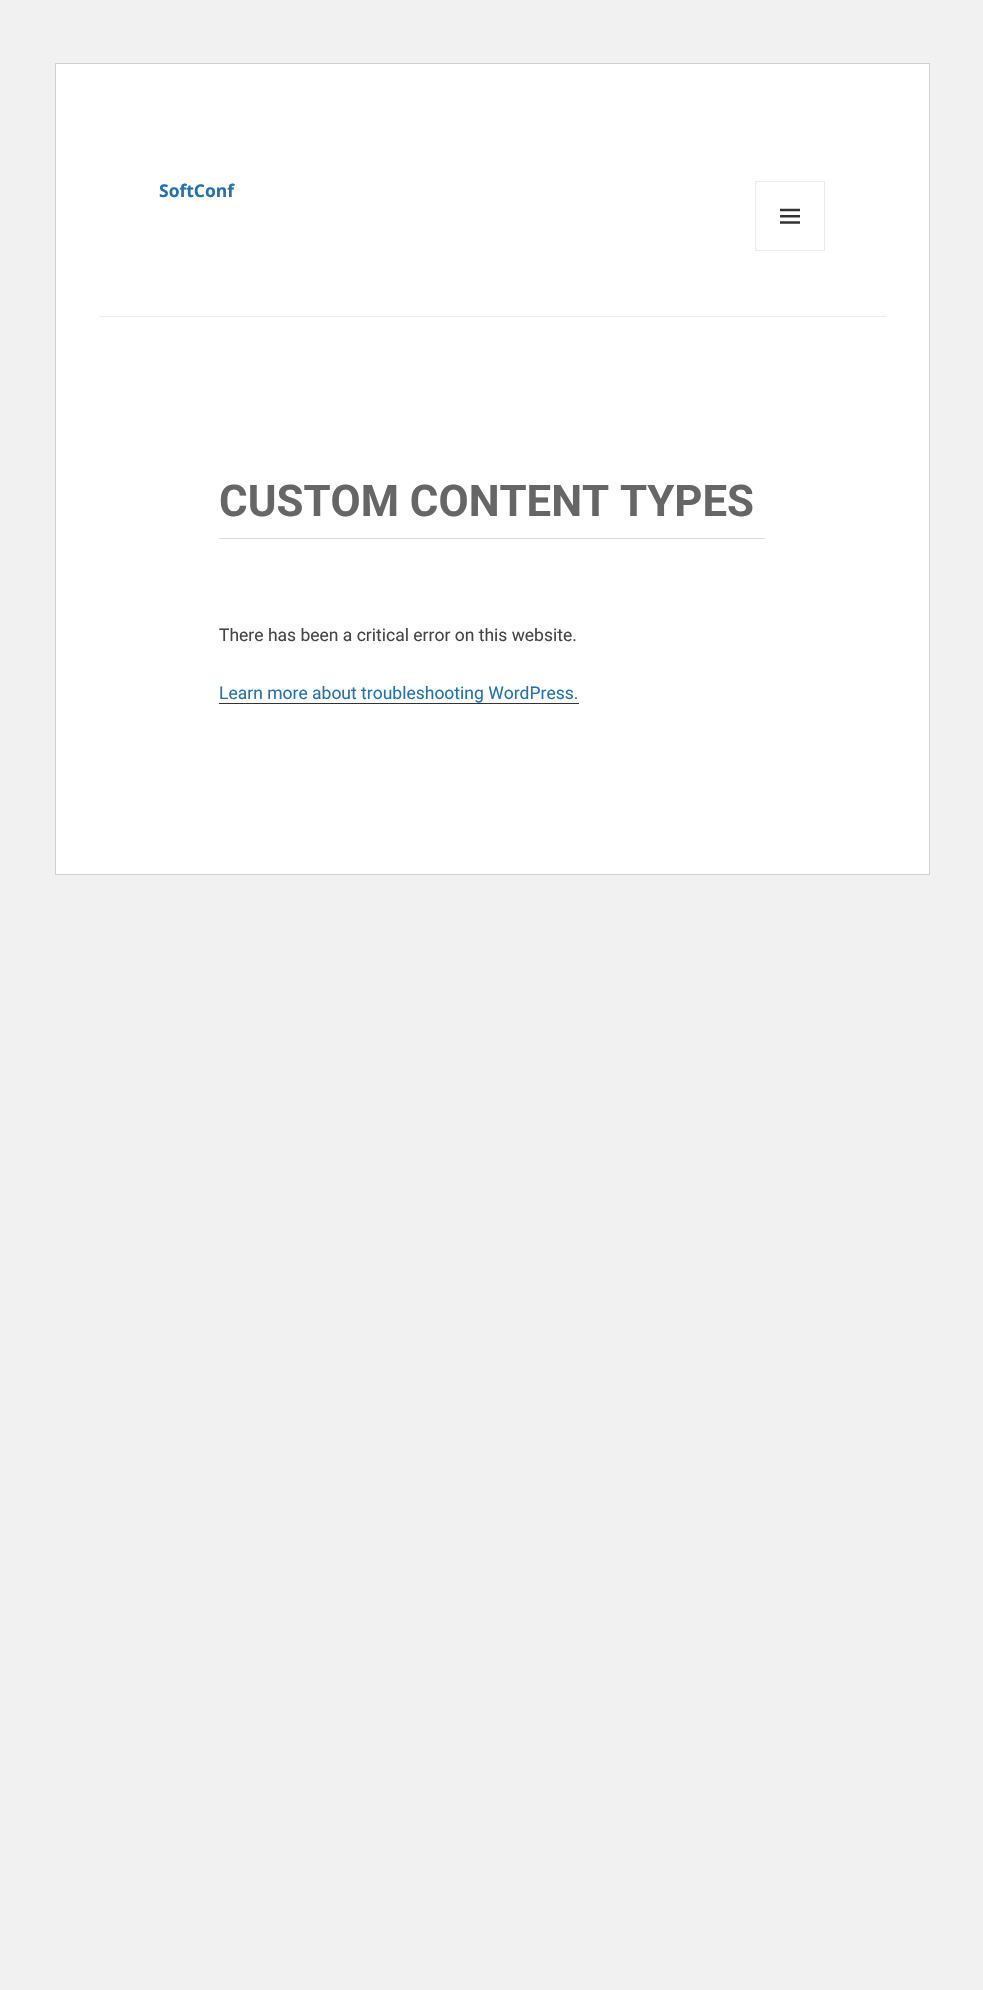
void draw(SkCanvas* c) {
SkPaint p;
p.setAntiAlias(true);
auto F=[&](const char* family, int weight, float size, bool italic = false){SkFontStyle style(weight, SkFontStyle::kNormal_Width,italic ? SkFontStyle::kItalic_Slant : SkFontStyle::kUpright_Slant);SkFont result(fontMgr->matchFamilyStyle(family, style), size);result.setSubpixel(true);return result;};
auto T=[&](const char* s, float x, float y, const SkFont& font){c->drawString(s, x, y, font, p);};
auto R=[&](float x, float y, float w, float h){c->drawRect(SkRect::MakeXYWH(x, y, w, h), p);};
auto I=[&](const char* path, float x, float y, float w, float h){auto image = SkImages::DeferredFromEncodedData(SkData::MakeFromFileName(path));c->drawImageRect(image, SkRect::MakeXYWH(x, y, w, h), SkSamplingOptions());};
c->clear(0xfff1f1f1);
p.setColor(0xffffffff);
c->drawRect(SkRect::MakeXYWH(55.5,63.5,874,811),p);
p.setStroke(true);
p.setStrokeWidth(1);
p.setColor(0xffccd0d4);
c->drawRect(SkRect::MakeXYWH(55.5,63.5,874,811),p);
p.setStroke(false);
p.setColor(0xffebebeb);
R(99,316,787,1);
auto f1 = F("Noto Sans",700,17.5);
p.setColor(0xff2271b1);
T("SoftConf",159,197,f1);
p.setStroke(true);
p.setColor(0xffebebeb);
c->drawRect(SkRect::MakeXYWH(755.5,181.5,69,69),p);
I("1.png",780,208,20,16);
p.setStroke(false);
p.setColor(0xffdadada);
R(219,538,546,1);
auto f2 = F("Roboto",700,43.75);
p.setColor(0xff666666);
T("CUSTOM CONTENT TYPES",219,516,f2);
auto f3 = F("Roboto",400,17.5);
p.setColor(0xff444444);
T("There has been a critical error on this website.",219,641,f3);
p.setColor(0xff2271b1);
T("Learn more about troubleshooting WordPress.",219,699,f3);
p.setColor(0xff333333);
R(219,703,360,1);
}
